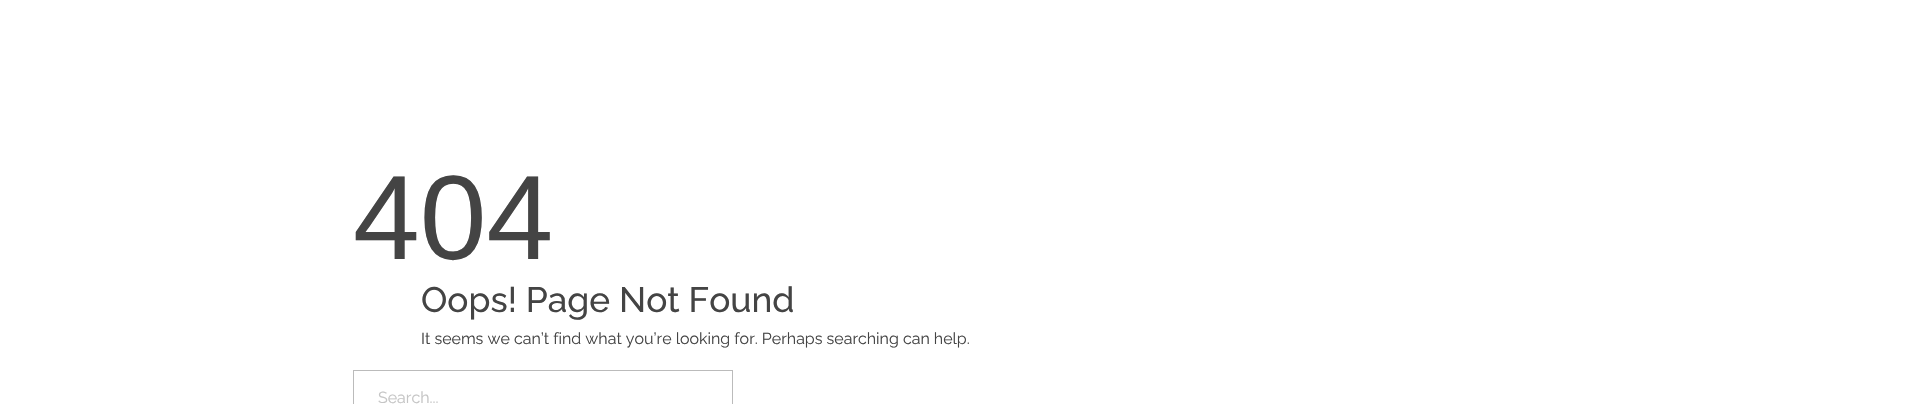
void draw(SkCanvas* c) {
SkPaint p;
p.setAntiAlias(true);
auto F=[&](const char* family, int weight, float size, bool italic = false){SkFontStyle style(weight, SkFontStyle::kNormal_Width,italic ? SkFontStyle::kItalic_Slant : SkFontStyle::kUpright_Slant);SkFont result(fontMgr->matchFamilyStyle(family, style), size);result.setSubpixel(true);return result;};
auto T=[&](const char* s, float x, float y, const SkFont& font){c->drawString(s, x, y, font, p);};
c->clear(0xffffffff);
auto f1 = F("Liberation Sans",400,120);
p.setColor(0xff444444);
T("404",353,259,f1);
auto f2 = F("Raleway",500,35.25);
T("Oops! Page Not Found",421,312,f2);
auto f3 = F("Raleway",400,16);
T("It seems we can’t find what you’re looking for. Perhaps searching can help.",421,344,f3);
p.setStroke(true);
p.setStrokeWidth(1);
p.setColor(0xffbbbbbb);
c->drawRect(SkRect::MakeXYWH(353.5,370.5,379,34),p);
p.setStroke(false);
p.setColor(0xffc5c5c5);
T("Search...",378,403,f3);
}
